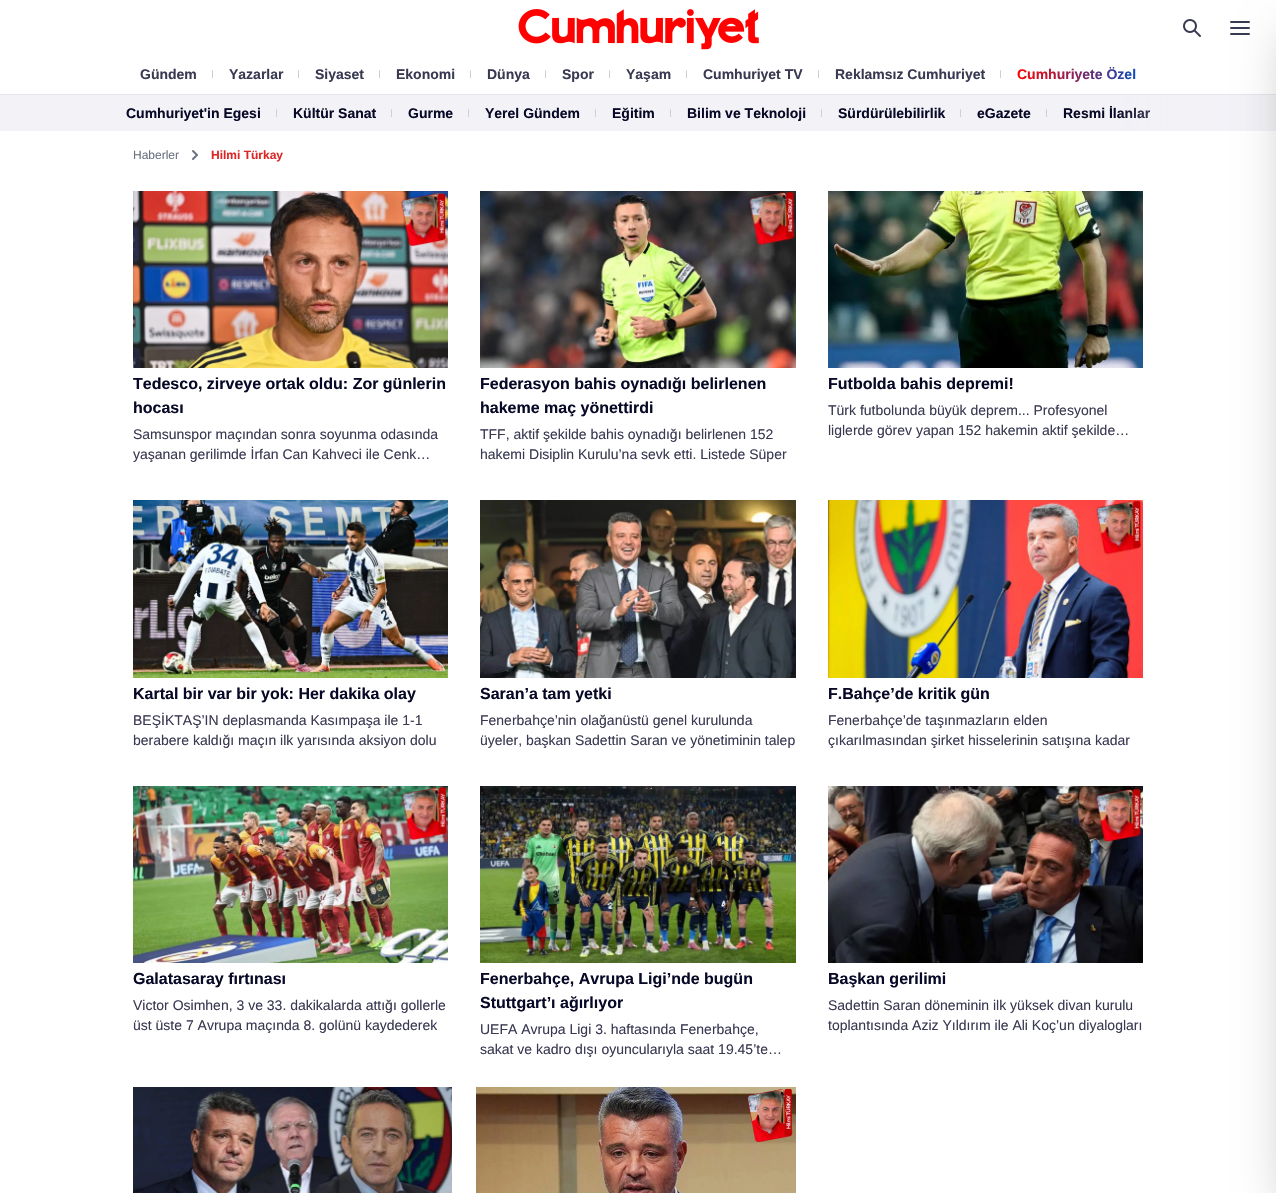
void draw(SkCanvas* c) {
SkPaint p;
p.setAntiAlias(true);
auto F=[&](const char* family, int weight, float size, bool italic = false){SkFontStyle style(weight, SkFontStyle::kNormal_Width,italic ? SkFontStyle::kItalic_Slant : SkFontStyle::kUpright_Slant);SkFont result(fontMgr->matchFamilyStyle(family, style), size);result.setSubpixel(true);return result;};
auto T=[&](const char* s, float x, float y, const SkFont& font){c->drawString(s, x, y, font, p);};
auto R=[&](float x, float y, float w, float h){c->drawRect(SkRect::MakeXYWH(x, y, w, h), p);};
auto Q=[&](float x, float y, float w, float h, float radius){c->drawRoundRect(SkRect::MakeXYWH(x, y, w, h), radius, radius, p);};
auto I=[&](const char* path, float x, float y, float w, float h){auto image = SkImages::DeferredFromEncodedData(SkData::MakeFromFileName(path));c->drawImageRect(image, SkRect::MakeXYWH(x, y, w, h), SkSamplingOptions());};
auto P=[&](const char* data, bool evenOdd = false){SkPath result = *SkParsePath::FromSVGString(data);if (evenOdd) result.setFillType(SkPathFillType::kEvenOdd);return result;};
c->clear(0xffffffff);
I("1.png",518,9,241,41);
I("2.png",1183,19,18,18);
I("3.png",1230,21,20,14);
auto f1 = F("Liberation Sans",700,14);
p.setColor(0xff393952);
T("Gündem",140,79,f1);
p.setColor(0xffceced4);
Q(212,70,1,8,.5);
p.setColor(0xff393952);
T("Yazarlar",229,79,f1);
p.setColor(0xffceced4);
Q(298,70,1,8,.5);
p.setColor(0xff393952);
T("Siyaset",315,79,f1);
p.setColor(0xffceced4);
Q(379,70,1,8,.5);
p.setColor(0xff393952);
T("Ekonomi",396,79,f1);
p.setColor(0xffceced4);
Q(470,70,1,8,.5);
p.setColor(0xff393952);
T("Dünya",487,79,f1);
p.setColor(0xffceced4);
Q(545,70,1,8,.5);
p.setColor(0xff393952);
T("Spor",562,79,f1);
p.setColor(0xffceced4);
Q(609,70,1,8,.5);
p.setColor(0xff393952);
T("Yaşam",626,79,f1);
p.setColor(0xffceced4);
Q(686,70,1,8,.5);
p.setColor(0xff393952);
T("Cumhuriyet TV",703,79,f1);
p.setColor(0xffceced4);
Q(818,70,1,8,.5);
p.setColor(0xff393952);
T("Reklamsız Cumhuriyet",835,79,f1);
p.setColor(0xffceced4);
Q(1000,70,1,8,.5);
{
const SkColor colors[] = {0xffff0101,0xff0d4abc};
const float stops[] = {0,1};
const SkPoint ends[] = {{1017,74}, {1136,74}};
p.setShader(SkGradientShader::MakeLinear(ends, colors, stops, 2, SkTileMode::kClamp));
p.setAlpha(255);
}
T("Cumhuriyete Özel",1017,79,f1);
p.setShader(nullptr);
p.setColor(0xfff2f2f7);
R(0,95,1275,36);
p.setColor(0xffe5e7eb);
R(0,94,1276,1);
p.setColor(0xff080827);
T("Cumhuriyet'in Egesi",126,118,f1);
p.setColor(0xffceced4);
Q(276,109,1,8,.5);
p.setColor(0xff080827);
T("Kültür Sanat",293,118,f1);
p.setColor(0xffceced4);
Q(391,109,1,8,.5);
p.setColor(0xff080827);
T("Gurme",408,118,f1);
p.setColor(0xffceced4);
Q(468,109,1,8,.5);
p.setColor(0xff080827);
T("Yerel Gündem",485,118,f1);
p.setColor(0xffceced4);
Q(595,109,1,8,.5);
p.setColor(0xff080827);
T("Eğitim",612,118,f1);
p.setColor(0xffceced4);
Q(670,109,1,8,.5);
p.setColor(0xff080827);
T("Bilim ve Teknoloji",687,118,f1);
p.setColor(0xffceced4);
Q(821,109,1,8,.5);
p.setColor(0xff080827);
T("Sürdürülebilirlik",838,118,f1);
p.setColor(0xffceced4);
Q(960,109,1,8,.5);
p.setColor(0xff080827);
T("eGazete",977,118,f1);
p.setColor(0xffceced4);
Q(1046,109,1,8,.5);
p.setColor(0xff080827);
T("Resmi İlanlar",1063,118,f1);
{
const SkColor colors[] = {0xfff2f2f7,0x00f2f2f7};
const float stops[] = {0,1};
const SkPoint ends[] = {{1276,113}, {1116,113}};
p.setShader(SkGradientShader::MakeLinear(ends, colors, stops, 2, SkTileMode::kClamp));
p.setAlpha(255);
}
R(1119,95,157,36);
p.setShader(nullptr);
p.setColor(0x40000000);
p.setMaskFilter(SkMaskFilter::MakeBlur(kNormal_SkBlurStyle, 25));
c->drawRect(SkRect::MakeXYWH(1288,37,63,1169),p);
p.setMaskFilter(nullptr);
auto f2 = F("Liberation Sans",400,12);
p.setColor(0xff6b7280);
T("Haberler",133,159,f2);
p.setStroke(true);
p.setStrokeWidth(2);
p.setStrokeCap(SkPaint::kRound_Cap);
p.setStrokeJoin(SkPaint::kRound_Join);
c->drawPath(P("M193 159l4-4l-4-4"),p);
auto f3 = F("Liberation Sans",700,12);
p.setStroke(false);
p.setColor(0xffdc2626);
T("Hilmi Türkay",211,159,f3);
I("4.png",133,191,315,177);
auto f4 = F("Liberation Sans",700,16);
p.setColor(0xff080827);
T("Tedesco, zirveye ortak oldu: Zor günlerin",133,389,f4);
T("hocası",133,413,f4);
auto f5 = F("Liberation Sans",400,14);
p.setColor(0xff393952);
T("Samsunspor maçından sonra soyunma odasında",133,439,f5);
T("yaşanan gerilimde İrfan Can Kahveci ile Cenk…",133,459,f5);
I("5.png",480,191,316,177);
p.setColor(0xff080827);
T("Federasyon bahis oynadığı belirlenen",480,389,f4);
T("hakeme maç yönettirdi",480,413,f4);
p.setColor(0xff393952);
T("TFF, aktif şekilde bahis oynadığı belirlenen 152",480,439,f5);
T("hakemi Disiplin Kurulu’na sevk etti. Listede Süper",480,459,f5);
I("6.png",828,191,315,177);
p.setColor(0xff080827);
T("Futbolda bahis depremi!",828,389,f4);
p.setColor(0xff393952);
T("Türk futbolunda büyük deprem... Profesyonel",828,415,f5);
T("liglerde görev yapan 152 hakemin aktif şekilde…",828,435,f5);
I("7.png",133,500,315,178);
p.setColor(0xff080827);
T("Kartal bir var bir yok: Her dakika olay",133,699,f4);
p.setColor(0xff393952);
T("BEŞİKTAŞ’IN deplasmanda Kasımpaşa ile 1-1",133,725,f5);
T("berabere kaldığı maçın ilk yarısında aksiyon dolu",133,745,f5);
I("8.png",480,500,316,178);
p.setColor(0xff080827);
T("Saran’a tam yetki",480,699,f4);
p.setColor(0xff393952);
T("Fenerbahçe’nin olağanüstü genel kurulunda",480,725,f5);
T("üyeler, başkan Sadettin Saran ve yönetiminin talep",480,745,f5);
I("9.png",828,500,315,178);
p.setColor(0xff080827);
T("F.Bahçe’de kritik gün",828,699,f4);
p.setColor(0xff393952);
T("Fenerbahçe’de taşınmazların elden",828,725,f5);
T("çıkarılmasından şirket hisselerinin satışına kadar",828,745,f5);
I("10.png",133,786,315,177);
p.setColor(0xff080827);
T("Galatasaray fırtınası",133,984,f4);
p.setColor(0xff393952);
T("Victor Osimhen, 3 ve 33. dakikalarda attığı gollerle",133,1010,f5);
T("üst üste 7 Avrupa maçında 8. golünü kaydederek",133,1030,f5);
I("11.png",480,786,316,177);
p.setColor(0xff080827);
T("Fenerbahçe, Avrupa Ligi’nde bugün",480,984,f4);
T("Stuttgart’ı ağırlıyor",480,1008,f4);
p.setColor(0xff393952);
T("UEFA Avrupa Ligi 3. haftasında Fenerbahçe,",480,1034,f5);
T("sakat ve kadro dışı oyuncularıyla saat 19.45’te…",480,1054,f5);
I("12.png",828,786,315,177);
p.setColor(0xff080827);
T("Başkan gerilimi",828,984,f4);
p.setColor(0xff393952);
T("Sadettin Saran döneminin ilk yüksek divan kurulu",828,1010,f5);
T("toplantısında Aziz Yıldırım ile Ali Koç’un diyalogları",828,1030,f5);
I("13.png",133,1087,319,106);
I("14.png",476,1087,320,106);
}
